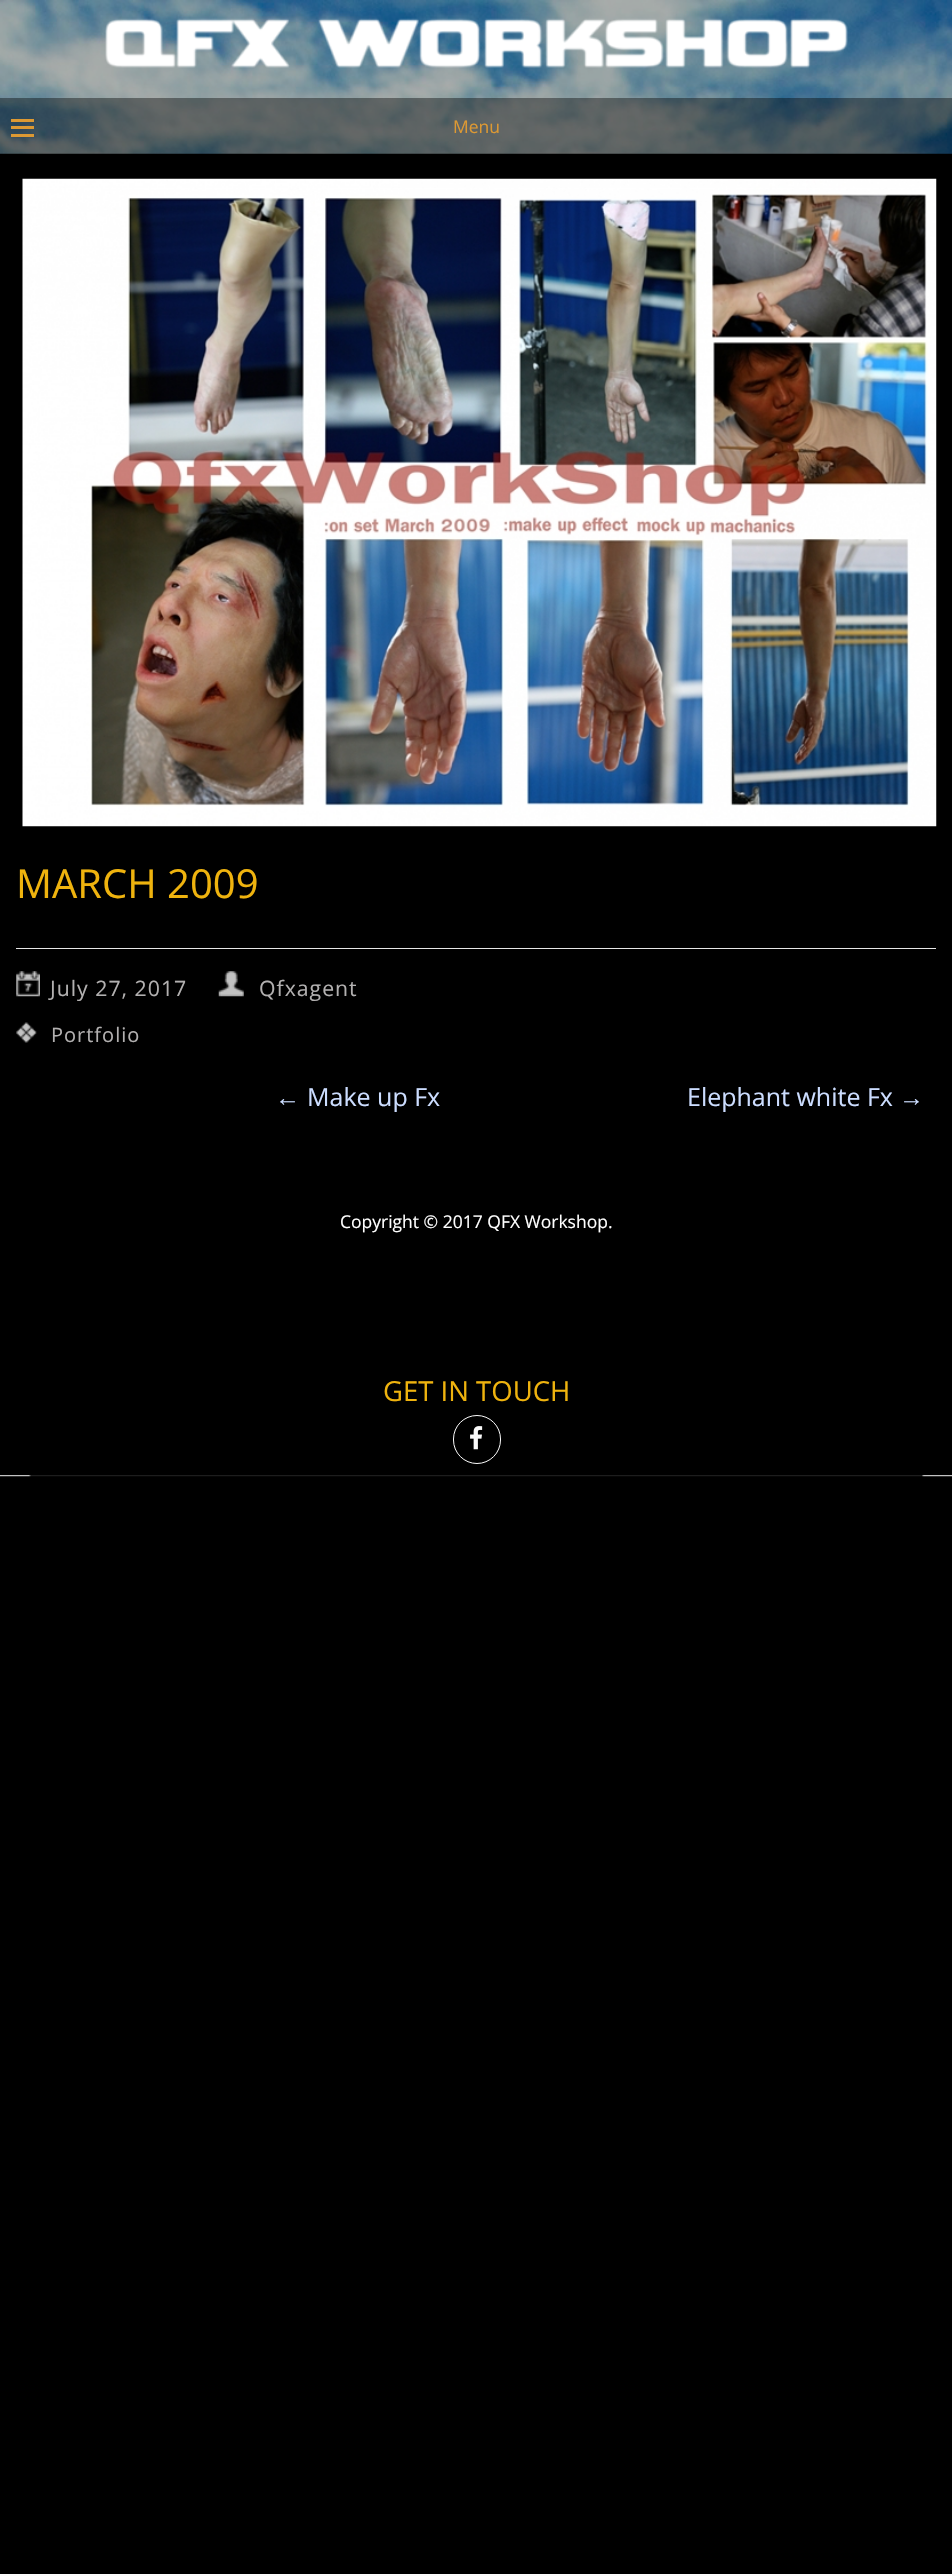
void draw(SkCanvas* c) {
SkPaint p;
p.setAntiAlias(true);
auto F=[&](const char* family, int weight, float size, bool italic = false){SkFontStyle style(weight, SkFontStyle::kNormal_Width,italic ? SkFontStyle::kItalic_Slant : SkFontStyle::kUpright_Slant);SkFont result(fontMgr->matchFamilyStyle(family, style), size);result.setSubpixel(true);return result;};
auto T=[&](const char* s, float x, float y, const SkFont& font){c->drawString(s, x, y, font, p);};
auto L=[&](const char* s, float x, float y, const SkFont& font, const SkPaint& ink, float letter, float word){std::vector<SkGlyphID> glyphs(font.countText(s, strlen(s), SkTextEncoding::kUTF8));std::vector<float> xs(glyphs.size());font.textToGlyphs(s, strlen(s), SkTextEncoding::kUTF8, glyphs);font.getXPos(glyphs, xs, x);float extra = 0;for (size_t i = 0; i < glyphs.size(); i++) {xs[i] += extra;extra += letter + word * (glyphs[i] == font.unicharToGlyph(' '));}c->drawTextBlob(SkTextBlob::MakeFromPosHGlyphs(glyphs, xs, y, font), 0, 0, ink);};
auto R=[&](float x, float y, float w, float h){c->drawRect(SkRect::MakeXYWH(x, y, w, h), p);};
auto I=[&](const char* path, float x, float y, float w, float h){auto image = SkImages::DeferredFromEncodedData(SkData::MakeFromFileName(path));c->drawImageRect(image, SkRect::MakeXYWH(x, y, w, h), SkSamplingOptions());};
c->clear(0xff000000);
I("1.png",0,0,952,154);
I("2.png",105,18,743,50);
p.setColor(0x66000000);
R(0,98,952,56);
p.setColor(0xffdd9933);
R(11,134,23,3);
R(11,126,23,3);
R(11,119,23,3);
auto f1 = F("Open Sans",400,17.5);
T("Menu",453,133,f1);
I("3.png",22,178,915,649);
auto f2 = F("Open Sans",400,40);
p.setColor(0xffefb30e);
T("MARCH 2009",16,898,f2);
p.setColor(0xffe7e7e7);
R(16,948,920,1);
I("4.png",16,971,24,26);
auto f3 = F("Open Sans",400,21.25);
p.setColor(0xffb2b0b0);
L("July 27, 2017",50,996,f3,p,1,0);
I("5.png",218,971,26,26);
L("Qfxagent",259,996,f3,p,1,0);
I("6.png",16,1022,21,21);
auto f4 = F("Open Sans",400,20);
L("Portfolio",51,1042,f4,p,1,0);
auto f5 = F("Liberation Sans",400,25);
p.setColor(0xffccddff);
T("←",275,1106,f5);
auto f6 = F("Open Sans",400,25);
T("Make up Fx",307,1106,f6);
T("Elephant white Fx",687,1106,f6);
T("→",899,1106,f5);
p.setColor(0xffffffff);
T("Copyright © 2017 QFX Workshop.",340,1228,f1);
auto f7 = F("Open Sans",400,27.5);
p.setColor(0xffefb30e);
T("GET IN TOUCH",383,1401,f7);
p.setStroke(true);
p.setStrokeWidth(1);
p.setColor(0xfffbfbfb);
c->drawRoundRect(SkRect::MakeXYWH(453.5,1415.5,47,48),23.5,23.5,p);
I("7.png",470,1426,13,24);
I("8.png",0,1475,952,2);
}
